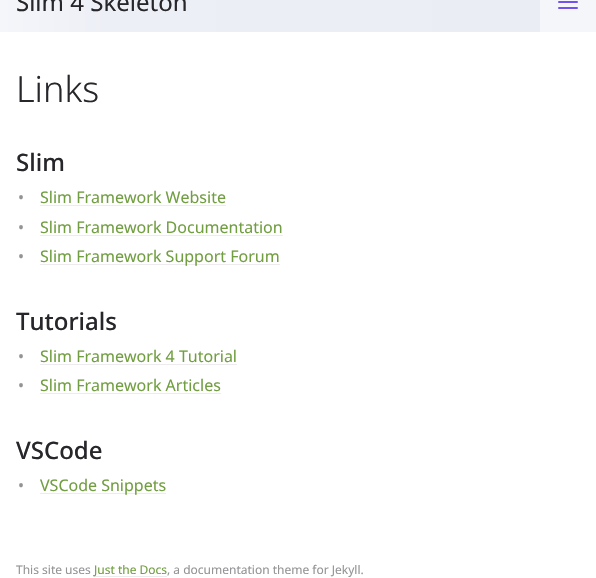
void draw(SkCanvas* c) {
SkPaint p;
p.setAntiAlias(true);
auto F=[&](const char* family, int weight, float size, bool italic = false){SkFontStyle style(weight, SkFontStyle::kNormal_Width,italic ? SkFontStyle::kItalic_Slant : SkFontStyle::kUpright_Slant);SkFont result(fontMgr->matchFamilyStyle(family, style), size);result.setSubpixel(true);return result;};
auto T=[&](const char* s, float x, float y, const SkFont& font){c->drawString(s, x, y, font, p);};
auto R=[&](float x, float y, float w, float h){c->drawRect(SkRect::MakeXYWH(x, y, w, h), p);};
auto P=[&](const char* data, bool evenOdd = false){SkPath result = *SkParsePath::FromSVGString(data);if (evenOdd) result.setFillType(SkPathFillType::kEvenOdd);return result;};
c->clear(0xffffffff);
p.setColor(0xfff5f6fa);
R(540,0,56,32);
{
const SkColor colors[] = {0xffebedf5,0xffedeff6,0xfff5f6fa};
const float stops[] = {0,.8,1};
const SkPoint ends[] = {{540,2}, {0,2}};
p.setShader(SkGradientShader::MakeLinear(ends, colors, stops, 3, SkTileMode::kClamp));
p.setAlpha(255);
}
R(0,0,540,32);
auto f1 = F("Noto Sans",400,24);
p.setShader(nullptr);
p.setColor(0xff27262b);
T("Slim 4 Skeleton",16,11,f1);
p.setStroke(true);
p.setStrokeWidth(2);
p.setStrokeCap(SkPaint::kRound_Cap);
p.setStrokeJoin(SkPaint::kRound_Join);
p.setColor(0xff7253ed);
c->drawPath(P("M559 2h18m-18 6h18"),p);
auto f2 = F("Noto Sans",400,12);
p.setStroke(false);
p.setColor(0xff959396);
T("This site uses",16,574,f2);
p.setColor(0xffeeebee);
R(94,576,73,1);
p.setColor(0xff719e40);
T("Just the Docs",94,574,f2);
p.setColor(0xff959396);
T(", a documentation theme for Jekyll.",167,574,f2);
auto f3 = F("Noto Sans",300,36);
p.setColor(0xff27262b);
T("Links",16,102,f3);
auto f4 = F("Noto Sans",500,24);
T("Slim",16,171,f4);
auto f5 = F("Noto Sans",400,16);
p.setColor(0xff959396);
T("•",18,203,f5);
p.setColor(0xff719e40);
T("Slim Framework Website",40,203,f5);
p.setColor(0xffeeebee);
R(40,205,186,1);
p.setColor(0xff959396);
T("•",18,233,f5);
p.setColor(0xff719e40);
T("Slim Framework Documentation",40,233,f5);
p.setColor(0xffeeebee);
R(40,235,243,1);
p.setColor(0xff959396);
T("•",18,262,f5);
p.setColor(0xffeeebee);
R(40,264,240,1);
p.setColor(0xff719e40);
T("Slim Framework Support Forum",40,262,f5);
p.setColor(0xff27262b);
T("Tutorials",16,330,f4);
p.setColor(0xff959396);
T("•",18,362,f5);
p.setColor(0xff719e40);
T("Slim Framework 4 Tutorial",40,362,f5);
p.setColor(0xffeeebee);
R(40,364,197,1);
p.setColor(0xff959396);
T("•",18,391,f5);
p.setColor(0xff719e40);
T("Slim Framework Articles",40,391,f5);
p.setColor(0xffeeebee);
R(40,393,181,1);
p.setColor(0xff27262b);
T("VSCode",16,459,f4);
p.setColor(0xff959396);
T("•",18,491,f5);
p.setColor(0xffeeebee);
R(40,493,126,1);
p.setColor(0xff719e40);
T("VSCode Snippets",40,491,f5);
}
